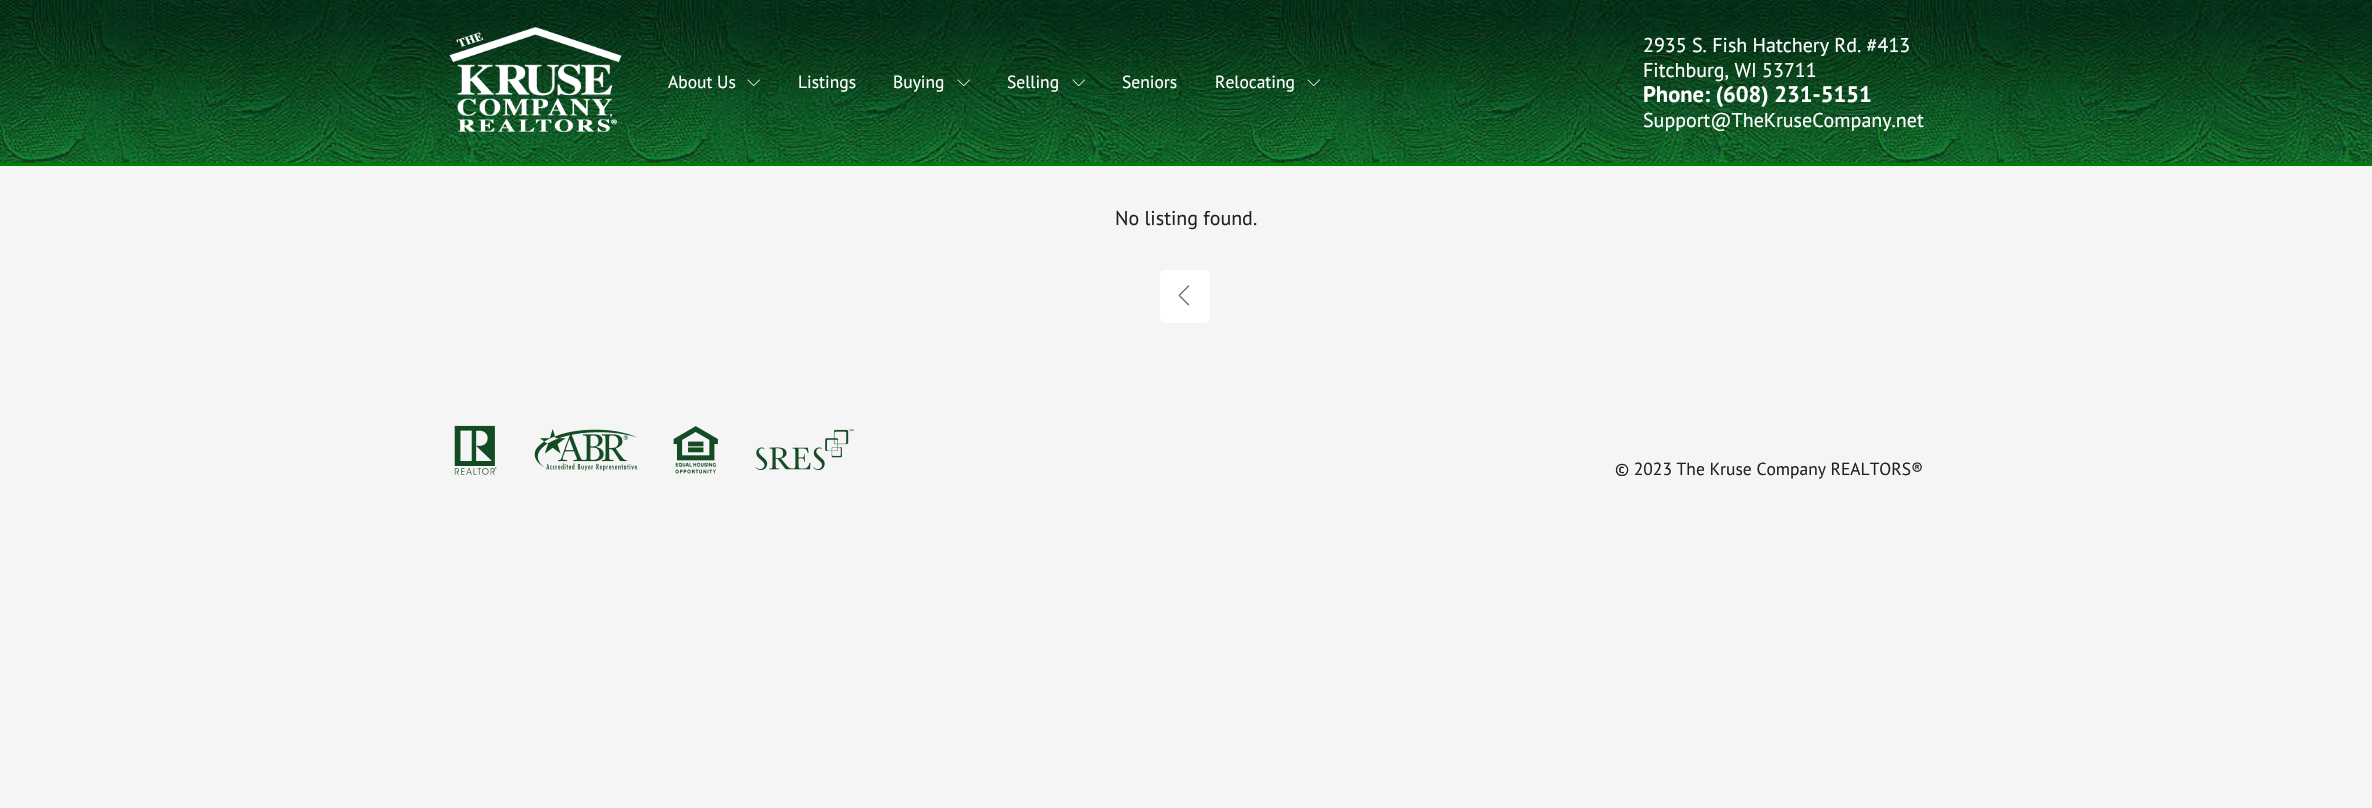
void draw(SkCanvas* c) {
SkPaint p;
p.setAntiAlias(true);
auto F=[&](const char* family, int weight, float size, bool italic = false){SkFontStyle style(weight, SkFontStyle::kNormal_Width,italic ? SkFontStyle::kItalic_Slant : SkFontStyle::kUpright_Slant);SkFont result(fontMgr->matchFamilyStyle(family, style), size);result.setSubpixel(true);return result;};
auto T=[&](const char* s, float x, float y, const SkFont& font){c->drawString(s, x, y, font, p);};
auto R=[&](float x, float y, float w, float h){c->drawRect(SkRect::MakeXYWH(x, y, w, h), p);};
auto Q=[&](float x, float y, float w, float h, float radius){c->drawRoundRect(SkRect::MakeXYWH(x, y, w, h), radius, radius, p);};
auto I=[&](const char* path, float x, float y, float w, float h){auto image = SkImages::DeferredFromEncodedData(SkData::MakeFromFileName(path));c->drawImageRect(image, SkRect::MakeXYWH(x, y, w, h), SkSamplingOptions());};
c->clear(0xfff5f5f5);
I("1.png",0,0,2372,163);
p.setColor(0xff008000);
R(0,163,2372,3);
I("2.png",449,27,173,105);
auto f1 = F("PT Sans",400,17.5);
p.setColor(0xffffffff);
T("About Us",668,88,f1);
I("3.png",747,79,13,7);
T("Listings",798,88,f1);
T("Buying",893,88,f1);
I("4.png",957,79,13,7);
T("Selling",1007,88,f1);
I("5.png",1072,79,13,7);
T("Seniors",1122,88,f1);
T("Relocating",1215,88,f1);
I("6.png",1307,79,13,7);
auto f2 = F("PT Sans",400,20);
T("2935 S. Fish Hatchery Rd. #413",1643,52,f2);
T("Fitchburg, WI 53711",1643,77,f2);
auto f3 = F("PT Sans",700,22.5);
T("Phone: (608) 231-5151",1643,102,f3);
T("Support@TheKruseCompany.net",1643,127,f2);
p.setColor(0xff222222);
T("No listing found.",1115,225,f2);
p.setColor(0xffffffff);
Q(1160,270,50,53,5);
I("7.png",1178,285,12,21);
I("8.png",454,425,43,50);
I("9.png",534,429,103,42);
I("10.png",673,426,45,48);
I("11.png",755,428,99,43);
p.setColor(0xff222222);
T("© 2023 The Kruse Company REALTORS®",1615,475,f1);
}
